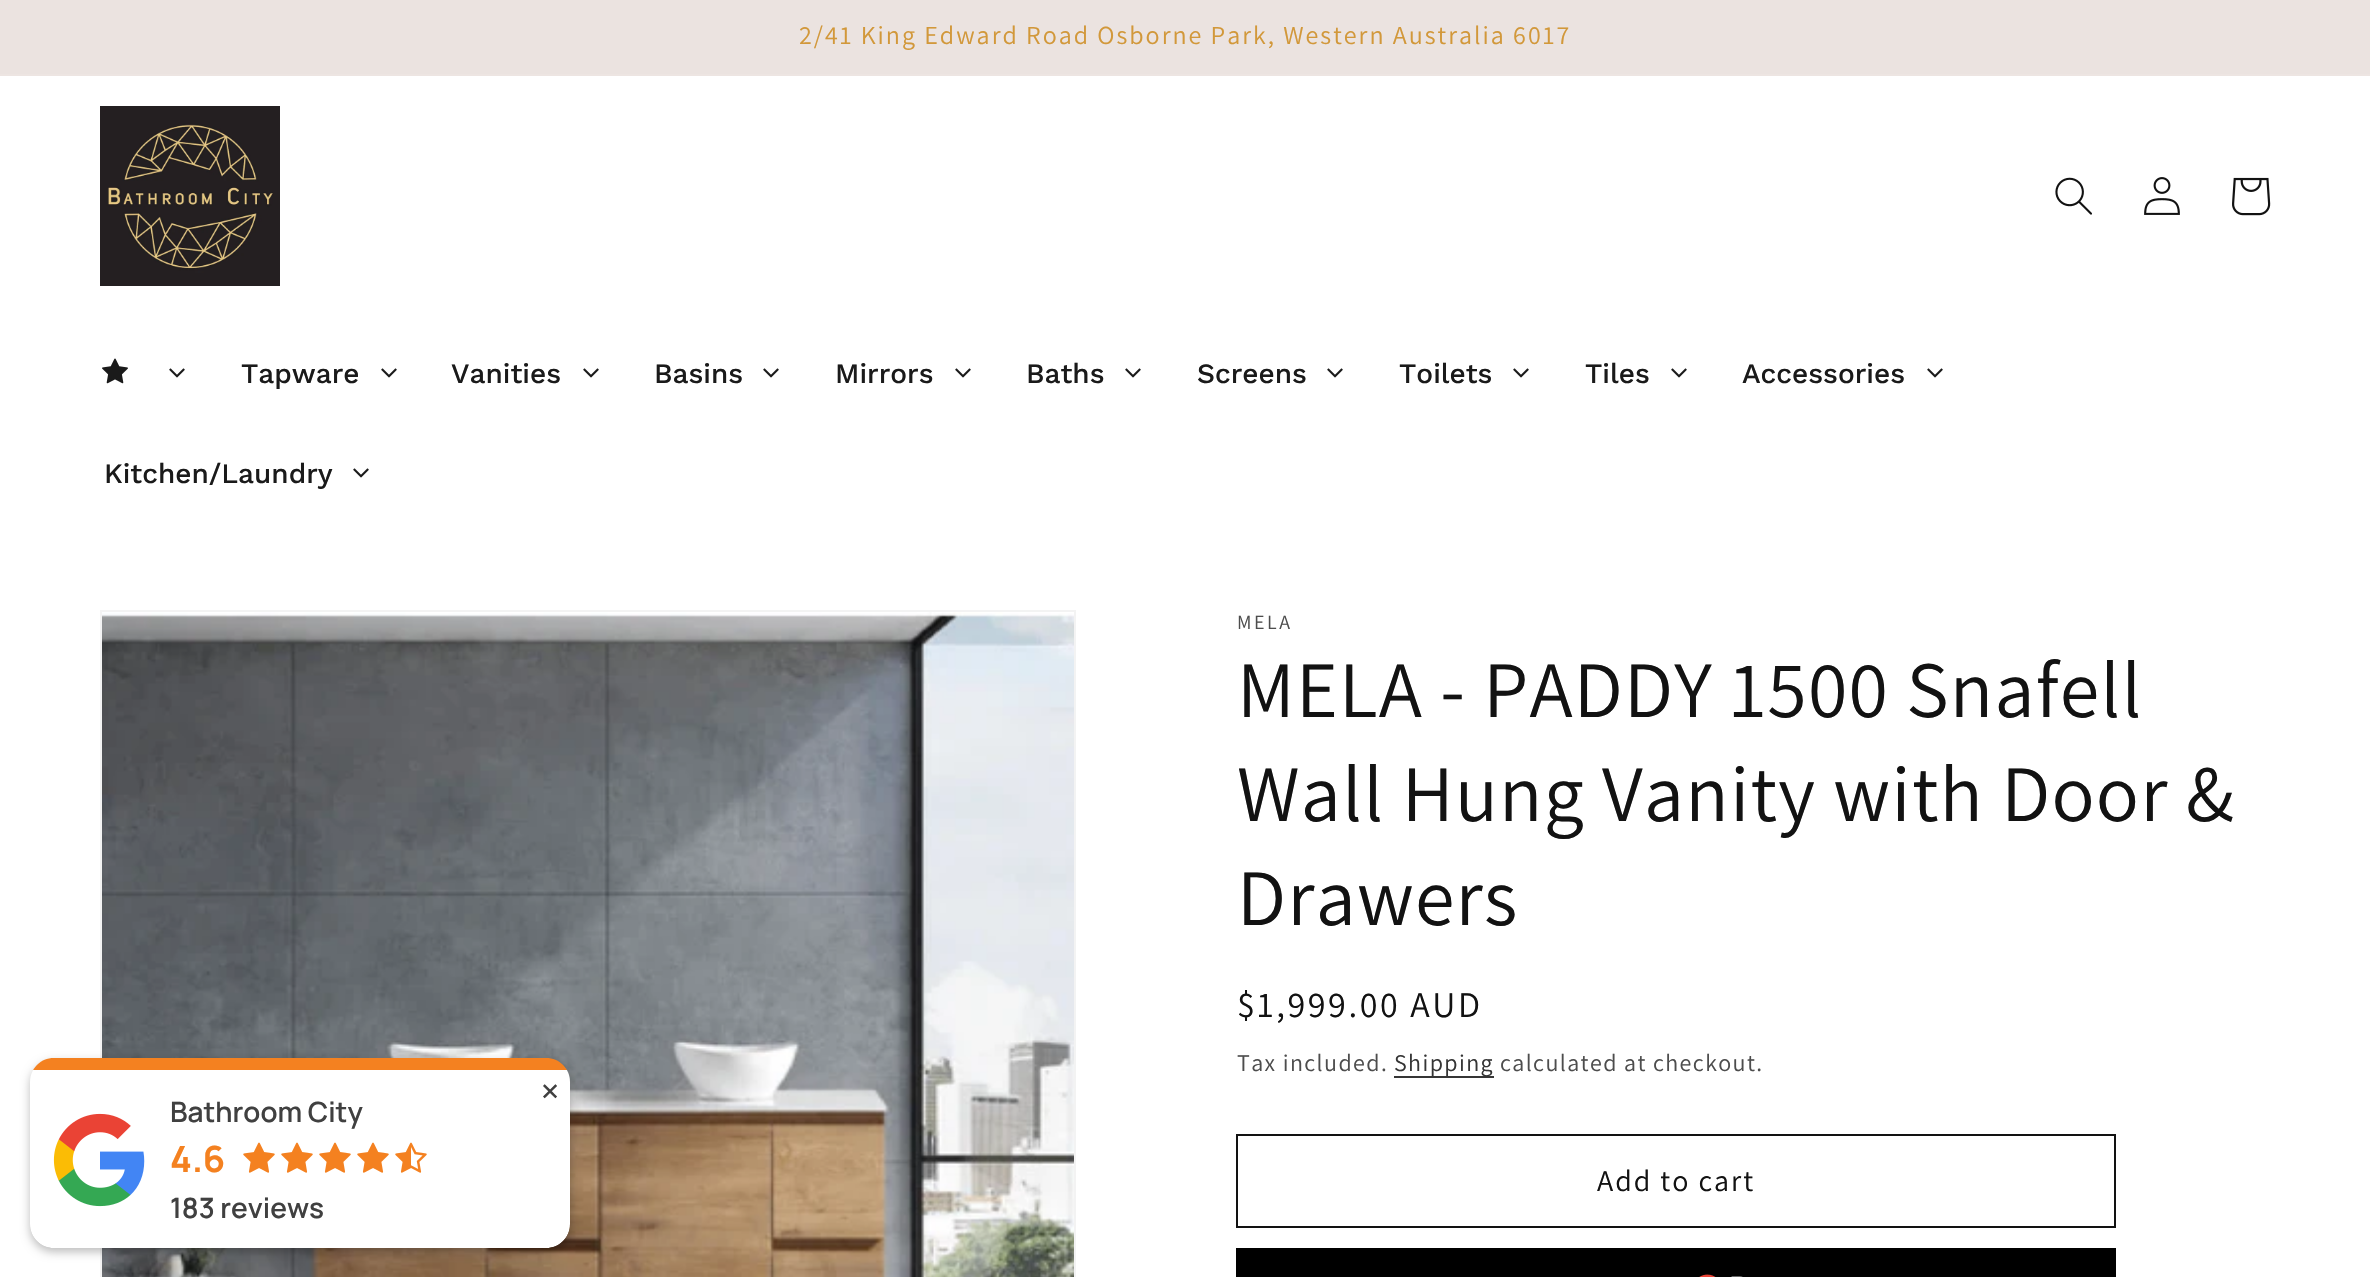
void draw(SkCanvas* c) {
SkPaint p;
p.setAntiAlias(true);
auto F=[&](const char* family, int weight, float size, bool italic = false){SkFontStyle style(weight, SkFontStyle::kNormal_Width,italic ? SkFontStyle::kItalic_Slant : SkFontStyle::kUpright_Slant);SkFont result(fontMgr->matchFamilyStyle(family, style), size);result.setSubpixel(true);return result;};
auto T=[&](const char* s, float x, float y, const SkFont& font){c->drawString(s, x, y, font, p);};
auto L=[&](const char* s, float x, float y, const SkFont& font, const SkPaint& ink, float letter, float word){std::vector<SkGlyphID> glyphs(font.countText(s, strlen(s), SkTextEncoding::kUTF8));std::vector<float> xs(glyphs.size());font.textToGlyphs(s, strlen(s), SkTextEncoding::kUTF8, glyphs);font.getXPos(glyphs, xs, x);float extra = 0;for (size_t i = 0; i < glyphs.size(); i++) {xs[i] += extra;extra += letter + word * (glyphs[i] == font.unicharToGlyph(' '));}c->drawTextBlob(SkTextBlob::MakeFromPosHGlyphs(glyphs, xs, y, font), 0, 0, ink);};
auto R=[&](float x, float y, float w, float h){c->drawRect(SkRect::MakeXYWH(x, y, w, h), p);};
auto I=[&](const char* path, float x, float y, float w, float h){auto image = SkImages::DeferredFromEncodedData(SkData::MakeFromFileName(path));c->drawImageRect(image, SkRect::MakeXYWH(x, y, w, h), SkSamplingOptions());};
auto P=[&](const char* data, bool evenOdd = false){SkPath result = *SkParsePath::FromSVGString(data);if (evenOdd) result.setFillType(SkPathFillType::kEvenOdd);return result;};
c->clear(0xffffffff);
p.setColor(0xffebe3e0);
R(0,0,2370,74);
p.setColor(0xffede5e2);
R(0,74,2370,2);
auto f1 = F("Assistant",400,26);
p.setColor(0xffd2983a);
L("2/41 King Edward Road Osborne Park, Western Australia 6017",799,44,f1,p,2,0);
I("1.png",100,106,180,180);
I("2.png",2055,177,37,38);
I("3.png",2144,177,36,38);
I("4.png",2232,177,39,39);
I("5.png",102,358,26,26);
I("6.png",169,368,16,10);
auto f2 = F("Work Sans",500,28);
p.setColor(0xff1a1a1a);
T("Tapware",241,383,f2);
I("6.png",381,368,16,10);
T("Vanities",451,383,f2);
I("6.png",583,368,16,10);
T("Basins",654,383,f2);
I("6.png",763,368,16,10);
T("Mirrors",835,383,f2);
I("6.png",955,368,16,10);
T("Baths",1026,383,f2);
I("6.png",1125,368,16,10);
T("Screens",1197,383,f2);
I("6.png",1327,368,16,10);
T("Toilets",1399,383,f2);
I("6.png",1513,368,16,10);
T("Tiles",1585,383,f2);
I("6.png",1671,368,16,10);
T("Accessories",1742,383,f2);
I("6.png",1927,368,16,10);
T("Kitchen/Laundry",104,483,f2);
I("6.png",353,468,16,10);
p.setStroke(true);
p.setStrokeWidth(2);
p.setColor(0xfff3f3f3);
c->drawRect(SkRect::MakeXYWH(101,611,974,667),p);
I("10.png",102,612,972,665);
p.setStroke(false);
p.setColor(0x42000000);
p.setMaskFilter(SkMaskFilter::MakeBlur(kNormal_SkBlurStyle, 5));
c->drawRoundRect(SkRect::MakeXYWH(30,1062,540,190),24,24,p);
p.setMaskFilter(nullptr);
c->save();
c->clipPath(P("M54 1058h492c13.5 0 24 10.5 24 24v142c0 13.5-10.5 24-24 24h-492c-13.5 0-24-10.5-24-24v-142c0-13.5 10.5-24 24-24z"),true);
p.setColor(0xfff48120);
R(33,1058,534,12);
p.setColor(0xffffffff);
c->drawPath(P("M30 1070h540v154c0 13.5-10.5 24-24 24h-492c-13.5 0-24-10.5-24-24z"),p);
c->restore();
auto f3 = F("DejaVu Sans",400,24);
p.setColor(0xff404040);
T("✕",540,1100,f3);
I("7.png",53,1113,92,94);
auto f4 = F("Manrope",600,28);
T("Bathroom City",170,1122,f4);
auto f5 = F("Manrope",700,36);
p.setColor(0xfff48120);
T("4.6",170,1172,f5);
I("8.png",243,1142,32,31);
I("8.png",281,1142,32,31);
I("8.png",319,1142,32,31);
I("8.png",357,1142,32,31);
I("9.png",395,1142,32,31);
p.setColor(0xff404040);
T("183 reviews",170,1218,f4);
auto f6 = F("Assistant",400,20);
p.setColor(0xff4d4d4d);
L("MELA",1237,629,f6,p,2.6,0);
auto f7 = F("Assistant",400,80);
p.setColor(0xff121212);
L("MELA - PADDY 1500 Snafell",1237,717,f7,p,1.2,0);
L("Wall Hung Vanity with Door &",1237,821,f7,p,1.2,0);
L("Drawers",1237,925,f7,p,1.2,0);
auto f8 = F("Assistant",400,36);
L("$1,999.00 AUD",1237,1017,f8,p,2.6,0);
auto f9 = F("Assistant",400,24);
p.setColor(0xff4d4d4d);
L("Tax included.",1237,1071,f9,p,1.4,0);
p.setColor(0xff363636);
R(1394,1076,100,2);
p.setColor(0xff353535);
L("Shipping",1394,1071,f9,p,1.4,0);
p.setColor(0xff4d4d4d);
L("calculated at checkout.",1500,1071,f9,p,1.4,0);
p.setStroke(true);
p.setColor(0xff121212);
c->drawRect(SkRect::MakeXYWH(1237,1135,878,92),p);
auto f10 = F("Assistant",400,30);
p.setStroke(false);
L("Add to cart",1597,1191,f10,p,2,0);
p.setColor(0xff000000);
R(1236,1248,880,29);
I("11.png",1699,1274,44,3);
}
